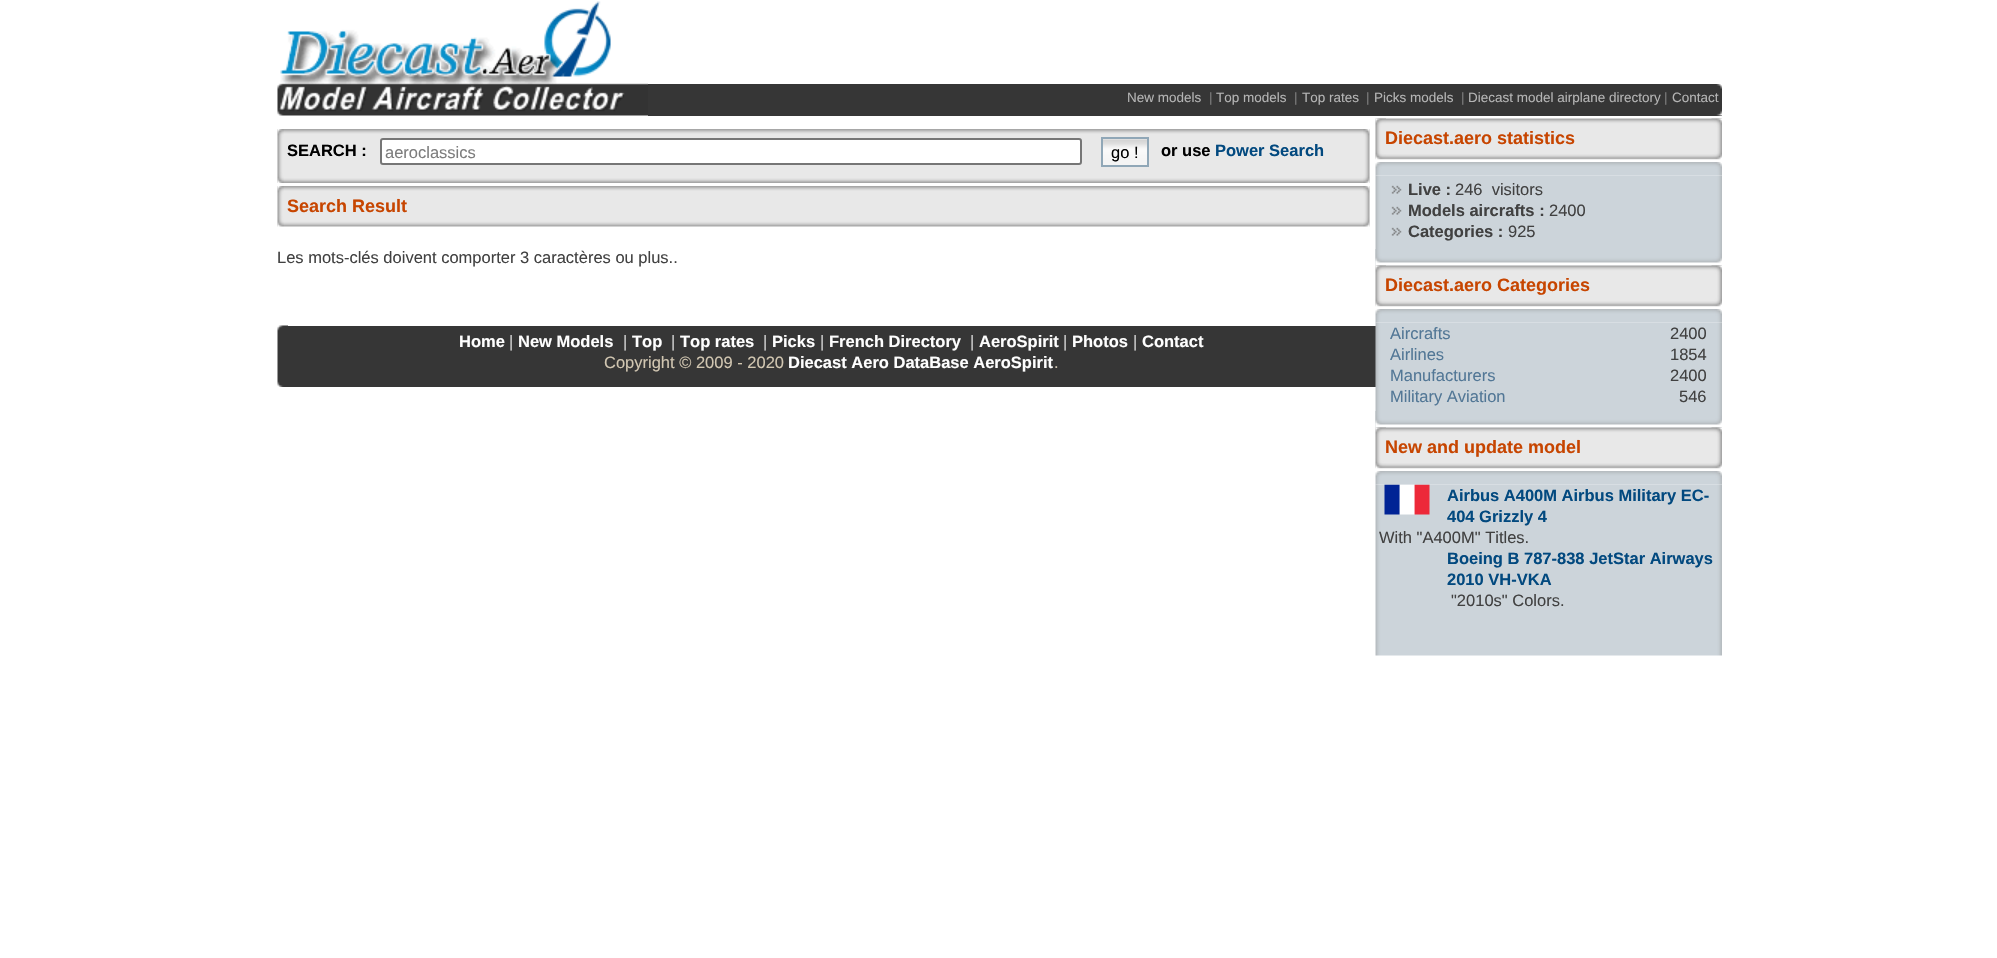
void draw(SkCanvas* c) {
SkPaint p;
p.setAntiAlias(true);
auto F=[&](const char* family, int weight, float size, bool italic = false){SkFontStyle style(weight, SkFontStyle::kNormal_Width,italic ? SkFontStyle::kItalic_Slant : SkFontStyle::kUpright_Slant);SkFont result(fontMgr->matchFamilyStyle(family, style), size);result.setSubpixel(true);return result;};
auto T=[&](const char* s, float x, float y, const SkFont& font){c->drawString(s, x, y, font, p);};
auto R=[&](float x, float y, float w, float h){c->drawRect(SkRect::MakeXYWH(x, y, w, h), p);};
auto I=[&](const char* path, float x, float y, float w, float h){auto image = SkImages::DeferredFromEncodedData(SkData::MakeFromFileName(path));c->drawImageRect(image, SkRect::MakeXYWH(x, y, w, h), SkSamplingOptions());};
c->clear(0xffffffff);
I("1.png",277,1,371,115);
p.setColor(0xff363636);
R(648,84,1074,32);
I("2.png",1716,84,6,32);
auto f1 = F("Liberation Sans",400,13.5);
p.setColor(0xffb4b4b4);
T("New models",1127,102,f1);
p.setColor(0xff7d7d7d);
T("|",1209,102,f1);
p.setColor(0xffb4b4b4);
T("Top models",1216,102,f1);
p.setColor(0xff7d7d7d);
T("|",1294,102,f1);
p.setColor(0xffb4b4b4);
T("Top rates",1302,102,f1);
p.setColor(0xff7d7d7d);
T("|",1366,102,f1);
p.setColor(0xffb4b4b4);
T("Picks models",1374,102,f1);
p.setColor(0xff7d7d7d);
T("|",1461,102,f1);
p.setColor(0xffb4b4b4);
T("Diecast model airplane directory",1468,102,f1);
p.setColor(0xff7d7d7d);
T("|",1664,102,f1);
p.setColor(0xffb4b4b4);
T("Contact",1672,102,f1);
I("3.png",277,129,1093,54);
I("4.png",1363,129,7,54);
I("5.png",277,129,7,54);
auto f2 = F("Liberation Sans",700,16.5);
p.setColor(0xff000000);
T("SEARCH :",287,156,f2);
p.setColor(0xffffffff);
c->drawRoundRect(SkRect::MakeXYWH(381,139,700,25),2,2,p);
p.setStroke(true);
p.setStrokeWidth(2);
p.setColor(0xff767676);
c->drawRoundRect(SkRect::MakeXYWH(381,139,700,25),2,2,p);
auto f3 = F("Liberation Sans",400,16.5);
p.setStroke(false);
p.setColor(0xff7d7d7d);
T("aeroclassics",385,158,f3);
I("6.png",1103,139,44,26);
p.setStroke(true);
p.setColor(0xff90a7b7);
c->drawRect(SkRect::MakeXYWH(1102,138,46,28),p);
p.setStroke(false);
p.setColor(0xff000000);
T("go !",1111,158,f3);
T("or use",1161,156,f2);
p.setColor(0xff02497f);
T("Power Search",1215,156,f2);
I("7.png",277,186,1093,41);
I("8.png",277,186,7,41);
I("9.png",1363,186,7,41);
auto f4 = F("Liberation Sans",700,18);
p.setColor(0xffc74500);
T("Search Result",287,212,f4);
p.setColor(0xff414141);
T("Les mots-clés doivent comporter 3 caractères ou plus..",277,263,f3);
I("10.png",1375,118,347,42);
I("11.png",1375,118,11,42);
I("12.png",1711,118,11,42);
p.setColor(0xffc74500);
T("Diecast.aero statistics",1385,144,f4);
I("14.png",1375,175,347,91);
I("13.png",1375,162,347,14);
I("15.png",1375,249,347,17);
I("16.png",1391,185,11,9);
p.setColor(0xff414141);
T("Live :",1408,195,f2);
T("246  visitors",1455,195,f3);
I("16.png",1391,206,11,9);
T("Models aircrafts :",1408,216,f2);
T("2400",1549,216,f3);
I("16.png",1391,227,11,9);
T("Categories :",1408,237,f2);
T("925",1508,237,f3);
I("17.png",1375,265,347,42);
I("18.png",1375,265,11,42);
I("19.png",1711,265,11,42);
p.setColor(0xffc74500);
T("Diecast.aero Categories",1385,291,f4);
p.setColor(0xff363636);
R(288,326,1088,61);
I("20.png",1375,322,347,106);
I("13.png",1375,309,347,14);
I("15.png",1375,411,347,17);
p.setColor(0xff527796);
T("Aircrafts",1390,339,f3);
p.setColor(0xff414141);
T("2400",1670,339,f3);
p.setColor(0xff527796);
T("Airlines",1390,360,f3);
p.setColor(0xff414141);
T("1854",1670,360,f3);
p.setColor(0xff527796);
T("Manufacturers",1390,381,f3);
p.setColor(0xff414141);
T("2400",1670,381,f3);
p.setColor(0xff527796);
T("Military Aviation",1390,402,f3);
p.setColor(0xff414141);
T("546",1679,402,f3);
I("17.png",1375,427,347,42);
I("18.png",1375,427,11,42);
I("19.png",1711,427,11,42);
p.setColor(0xffc74500);
T("New and update model",1385,453,f4);
I("22.png",1375,484,347,172);
I("23.png",1384,484,46,31);
I("21.png",1375,471,347,14);
p.setColor(0xff02497f);
T("Airbus A400M Airbus Military EC-",1447,501,f2);
T("404 Grizzly 4",1447,522,f2);
p.setColor(0xff414141);
T("With \"A400M\" Titles.",1379,543,f3);
p.setColor(0xff02497f);
T("Boeing B 787-838 JetStar Airways",1447,564,f2);
T("2010 VH-VKA",1447,585,f2);
p.setColor(0xff414141);
T("\"2010s\" Colors.",1451,606,f3);
I("24.png",277,325,11,62);
p.setColor(0xfffefefe);
T("Home",459,347,f2);
p.setColor(0xffcdcdcd);
T("|",509,347,f3);
p.setColor(0xfffefefe);
T("New Models",518,347,f2);
p.setColor(0xffcdcdcd);
T("|",623,347,f3);
p.setColor(0xfffefefe);
T("Top",632,347,f2);
p.setColor(0xffcdcdcd);
T("|",671,347,f3);
p.setColor(0xfffefefe);
T("Top rates",680,347,f2);
p.setColor(0xffcdcdcd);
T("|",763,347,f3);
p.setColor(0xfffefefe);
T("Picks",772,347,f2);
p.setColor(0xffcdcdcd);
T("|",820,347,f3);
p.setColor(0xfffefefe);
T("French Directory",829,347,f2);
p.setColor(0xffcdcdcd);
T("|",970,347,f3);
p.setColor(0xfffefefe);
T("AeroSpirit",979,347,f2);
p.setColor(0xffcdcdcd);
T("|",1063,347,f3);
p.setColor(0xfffefefe);
T("Photos",1072,347,f2);
p.setColor(0xffcdcdcd);
T("|",1133,347,f3);
p.setColor(0xfffefefe);
T("Contact",1142,347,f2);
p.setColor(0xffd1c6b1);
T("Copyright © 2009 - 2020",604,368,f3);
p.setColor(0xfffefefe);
T("Diecast Aero DataBase AeroSpirit",788,368,f2);
p.setColor(0xffd1c6b1);
T(".",1054,368,f3);
}
